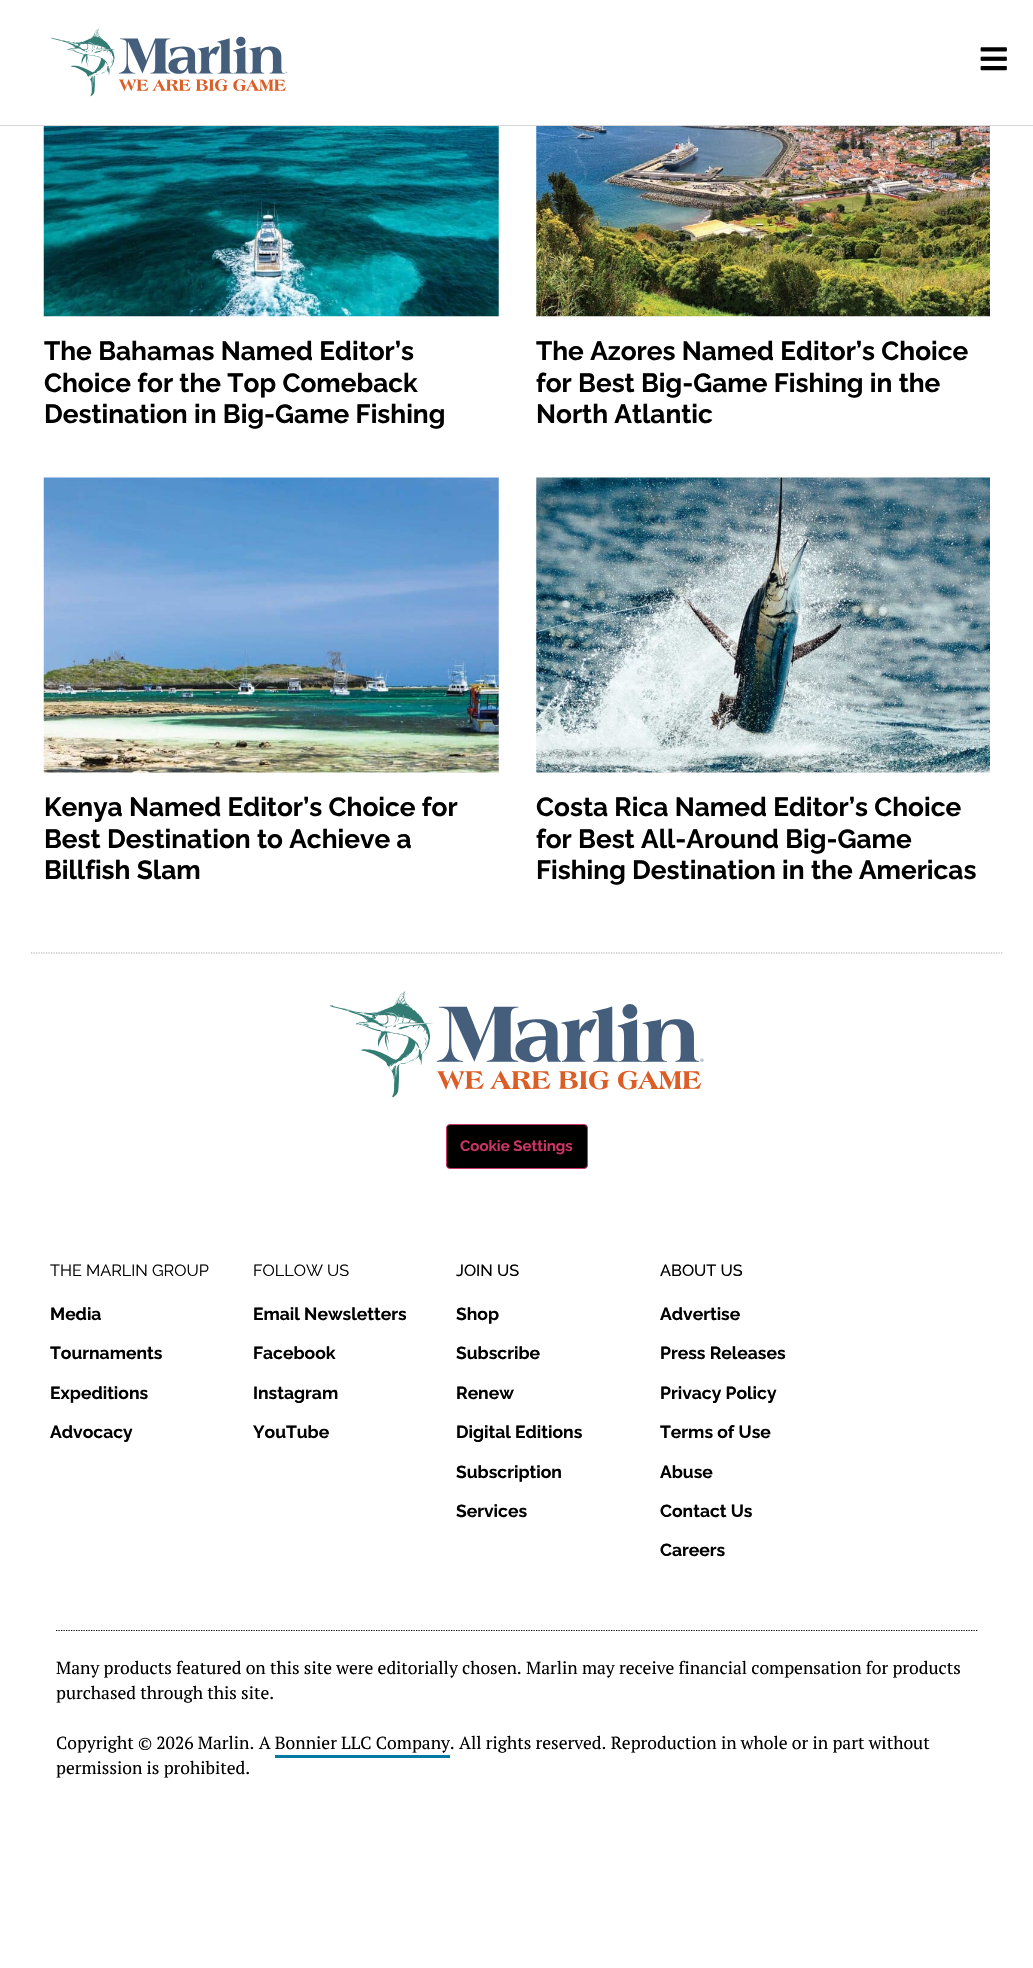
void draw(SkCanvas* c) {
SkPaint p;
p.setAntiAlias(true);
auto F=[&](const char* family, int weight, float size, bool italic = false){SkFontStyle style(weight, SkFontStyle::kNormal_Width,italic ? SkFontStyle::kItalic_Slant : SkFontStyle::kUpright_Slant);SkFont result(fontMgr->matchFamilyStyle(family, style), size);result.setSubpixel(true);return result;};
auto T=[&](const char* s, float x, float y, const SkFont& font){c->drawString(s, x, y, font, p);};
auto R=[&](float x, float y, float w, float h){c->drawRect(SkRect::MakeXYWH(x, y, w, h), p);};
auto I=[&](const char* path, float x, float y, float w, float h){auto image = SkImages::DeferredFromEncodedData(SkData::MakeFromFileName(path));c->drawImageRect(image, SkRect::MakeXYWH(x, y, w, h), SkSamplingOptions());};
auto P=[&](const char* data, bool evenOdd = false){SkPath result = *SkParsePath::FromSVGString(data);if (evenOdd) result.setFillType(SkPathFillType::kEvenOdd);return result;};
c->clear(0xffffffff);
p.setColor(0xffd8d8d8);
R(0,125,1033,1);
I("1.png",51,28,237,69);
I("2.png",980,47,27,24);
I("3.png",43,126,456,191);
auto f1 = F("Raleway",700,26.25);
p.setColor(0xff000000);
T("The Bahamas Named Editor’s",44,360,f1);
T("Choice for the Top Comeback",44,392,f1);
T("Destination in Big-Game Fishing",44,423,f1);
I("4.png",536,126,454,191);
T("The Azores Named Editor’s Choice",536,360,f1);
T("for Best Big-Game Fishing in the",536,392,f1);
T("North Atlantic",536,423,f1);
I("5.png",43,477,456,296);
T("Kenya Named Editor’s Choice for",44,816,f1);
T("Best Destination to Achieve a",44,848,f1);
T("Billfish Slam",44,879,f1);
I("6.png",536,477,454,296);
T("Costa Rica Named Editor’s Choice",536,816,f1);
T("for Best All-Around Big-Game",536,848,f1);
T("Fishing Destination in the Americas",536,879,f1);
p.setStroke(true);
p.setStrokeWidth(1.2);
p.setColor(0xffa9a9a9);
p.setPathEffect(SkDashPathEffect::Make({{1.25f,1.25f}}, 0));
c->drawPath(P("M31 953h971.5"),p);
p.setPathEffect(nullptr);
I("7.png",330,991,374,107);
p.setStroke(false);
p.setColor(0xff000000);
c->drawRoundRect(SkRect::MakeXYWH(446.5,1124.5,141,44),3.5,3.5,p);
p.setStroke(true);
p.setStrokeWidth(1);
p.setColor(0xffcc3366);
c->drawRoundRect(SkRect::MakeXYWH(446.5,1124.5,141,44),3.5,3.5,p);
auto f2 = F("Raleway",700,15);
p.setStroke(false);
T("Cookie Settings",460,1151,f2);
auto f3 = F("Raleway",400,16.25);
p.setColor(0xff000000);
T("THE MARLIN GROUP",50,1276,f3);
auto f4 = F("Raleway",700,17.5);
T("Media",50,1320,f4);
T("Tournaments",50,1359,f4);
T("Expeditions",50,1399,f4);
T("Advocacy",50,1438,f4);
T("FOLLOW US",253,1276,f3);
T("Email Newsletters",253,1320,f4);
T("Facebook",253,1359,f4);
T("Instagram",253,1399,f4);
T("YouTube",253,1438,f4);
auto f5 = F("Raleway",500,16.25);
T("JOIN US",456,1276,f5);
T("Shop",456,1320,f4);
T("Subscribe",456,1359,f4);
T("Renew",456,1399,f4);
T("Digital Editions",456,1438,f4);
T("Subscription",456,1478,f4);
T("Services",456,1517,f4);
T("ABOUT US",660,1276,f5);
T("Advertise",660,1320,f4);
T("Press Releases",660,1359,f4);
T("Privacy Policy",660,1399,f4);
T("Terms of Use",660,1438,f4);
T("Abuse",660,1478,f4);
T("Contact Us",660,1517,f4);
T("Careers",660,1556,f4);
p.setStroke(true);
p.setStrokeWidth(1.2);
p.setPathEffect(SkDashPathEffect::Make({{1.25f,1.25f}}, 0));
c->drawPath(P("M56 1630.5h921.5"),p);
p.setPathEffect(nullptr);
auto f6 = F("PT Serif",400,17.5);
p.setStroke(false);
T("Many products featured on this site were editorially chosen. Marlin may receive financial compensation for products",56,1674,f6);
T("purchased through this site.",56,1699,f6);
T("Copyright © 2026 Marlin. A Bonnier LLC Company. All rights reserved. Reproduction in whole or in part without",56,1749,f6);
p.setColor(0xff007aa5);
R(275,1755,175,3);
p.setColor(0xff000000);
T("permission is prohibited.",56,1774,f6);
}
